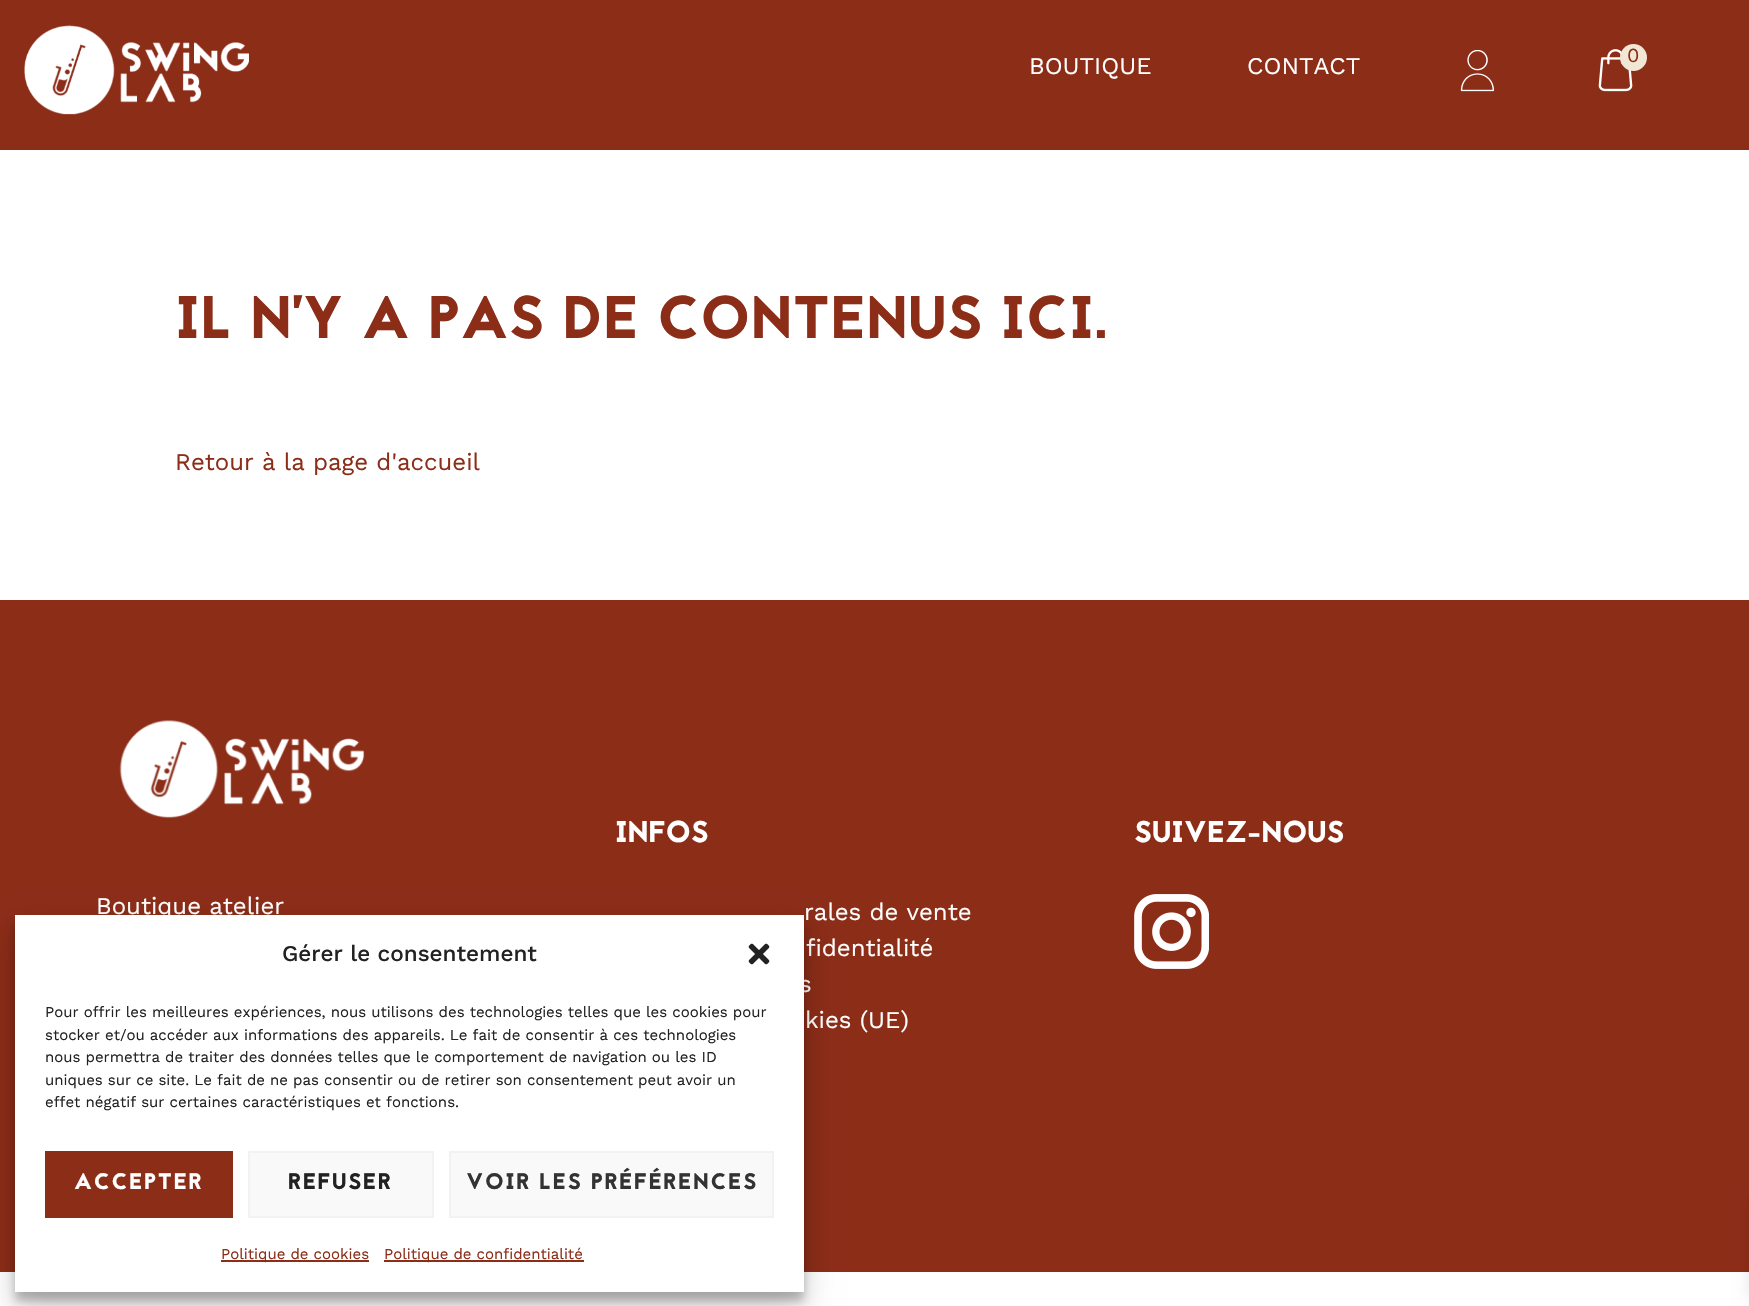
void draw(SkCanvas* c) {
SkPaint p;
p.setAntiAlias(true);
auto F=[&](const char* family, int weight, float size, bool italic = false){SkFontStyle style(weight, SkFontStyle::kNormal_Width,italic ? SkFontStyle::kItalic_Slant : SkFontStyle::kUpright_Slant);SkFont result(fontMgr->matchFamilyStyle(family, style), size);result.setSubpixel(true);return result;};
auto T=[&](const char* s, float x, float y, const SkFont& font){c->drawString(s, x, y, font, p);};
auto L=[&](const char* s, float x, float y, const SkFont& font, const SkPaint& ink, float letter, float word){std::vector<SkGlyphID> glyphs(font.countText(s, strlen(s), SkTextEncoding::kUTF8));std::vector<float> xs(glyphs.size());font.textToGlyphs(s, strlen(s), SkTextEncoding::kUTF8, glyphs);font.getXPos(glyphs, xs, x);float extra = 0;for (size_t i = 0; i < glyphs.size(); i++) {xs[i] += extra;extra += letter + word * (glyphs[i] == font.unicharToGlyph(' '));}c->drawTextBlob(SkTextBlob::MakeFromPosHGlyphs(glyphs, xs, y, font), 0, 0, ink);};
auto R=[&](float x, float y, float w, float h){c->drawRect(SkRect::MakeXYWH(x, y, w, h), p);};
auto I=[&](const char* path, float x, float y, float w, float h){auto image = SkImages::DeferredFromEncodedData(SkData::MakeFromFileName(path));c->drawImageRect(image, SkRect::MakeXYWH(x, y, w, h), SkSamplingOptions());};
c->clear(0xffffffff);
p.setColor(0xff8c2d18);
R(0,0,1749,150);
I("1.png",24,25,225,90);
auto f1 = F("Work Sans",400,24);
p.setColor(0xffffffff);
T("BOUTIQUE",1029,74,f1);
T("CONTACT",1247,74,f1);
I("2.png",1460,50,34,42);
I("3.png",1598,49,35,43);
p.setColor(0xfff2e7d5);
c->drawCircle(1633.5,57.5,13.5,p);
auto f2 = F("Work Sans",400,20);
p.setColor(0xff8c2d18);
T("0",1627,62,f2);
auto f3 = F("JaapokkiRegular",400,60);
T("IL N’Y A PAS DE CONTENUS ICI.",175,338,f3);
T("Retour à la page d'accueil",175,470,f1);
R(0,600,1749,672);
auto f4 = F("JaapokkiRegular",400,30);
p.setColor(0xffffffff);
T("INFOS",615,842,f4);
T("rales de vente",804,920,f1);
T("fidentialité",806,956,f1);
T("s",799,992,f1);
T("kies (UE)",805,1028,f1);
T("SUIVEZ-NOUS",1134,842,f4);
I("4.png",1134,894,75,75);
I("5.png",119,720,246,98);
T("Boutique atelier",96,914,f1);
p.setColor(0x3b000000);
p.setMaskFilter(SkMaskFilter::MakeBlur(kNormal_SkBlurStyle, 4.5));
c->drawRect(SkRect::MakeXYWH(15,924,789,377),p);
p.setMaskFilter(nullptr);
p.setColor(0x30000000);
p.setMaskFilter(SkMaskFilter::MakeBlur(kNormal_SkBlurStyle, 15));
c->drawRect(SkRect::MakeXYWH(15,930,789,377),p);
p.setMaskFilter(nullptr);
p.setColor(0xffffffff);
R(15,915,789,377);
auto f5 = F("Work Sans",500,22.5);
p.setColor(0xff222222);
T("Gérer le consentement",282,961,f5);
I("6.png",748,943,22,22);
auto f6 = F("Work Sans",400,15);
T("Pour offrir les meilleures expériences, nous utilisons des technologies telles que les cookies pour",45,1017,f6);
T("stocker et/ou accéder aux informations des appareils. Le fait de consentir à ces technologies",45,1040,f6);
T("nous permettra de traiter des données telles que le comportement de navigation ou les ID",45,1062,f6);
T("uniques sur ce site. Le fait de ne pas consentir ou de retirer son consentement peut avoir un",45,1085,f6);
T("effet négatif sur certaines caractéristiques et fonctions.",45,1107,f6);
p.setColor(0xff8c2d18);
R(45,1151,188,67);
auto f7 = F("JaapokkiRegular",400,22.5);
p.setColor(0xffffffff);
L("ACCEPTER",74,1189,f7,p,1.5,0);
p.setColor(0xfff9f9f9);
c->drawRect(SkRect::MakeXYWH(249,1152,184,65),p);
p.setStroke(true);
p.setStrokeWidth(2);
p.setColor(0xfff2f2f2);
c->drawRect(SkRect::MakeXYWH(249,1152,184,65),p);
p.setStroke(false);
p.setColor(0xff222222);
L("REFUSER",288,1189,f7,p,1.5,0);
p.setColor(0xfff9f9f9);
c->drawRect(SkRect::MakeXYWH(450,1152,323,65),p);
p.setStroke(true);
p.setColor(0xfff2f2f2);
c->drawRect(SkRect::MakeXYWH(450,1152,323,65),p);
p.setStroke(false);
p.setColor(0xff333333);
L("VOIR LES PRÉFÉRENCES",466,1189,f7,p,1.5,0);
p.setColor(0xff8c2d18);
R(221,1260,148,2);
T("Politique de cookies",221,1259,f6);
R(384,1260,200,2);
T("Politique de confidentialité",384,1259,f6);
p.setColor(0x1a000000);
p.setMaskFilter(SkMaskFilter::MakeBlur(kNormal_SkBlurStyle, 7.5));
c->drawRect(SkRect::MakeXYWH(1749,1202,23,97),p);
p.setMaskFilter(nullptr);
}
